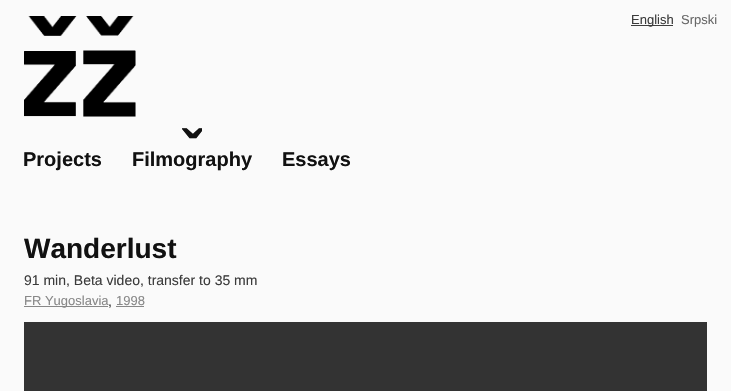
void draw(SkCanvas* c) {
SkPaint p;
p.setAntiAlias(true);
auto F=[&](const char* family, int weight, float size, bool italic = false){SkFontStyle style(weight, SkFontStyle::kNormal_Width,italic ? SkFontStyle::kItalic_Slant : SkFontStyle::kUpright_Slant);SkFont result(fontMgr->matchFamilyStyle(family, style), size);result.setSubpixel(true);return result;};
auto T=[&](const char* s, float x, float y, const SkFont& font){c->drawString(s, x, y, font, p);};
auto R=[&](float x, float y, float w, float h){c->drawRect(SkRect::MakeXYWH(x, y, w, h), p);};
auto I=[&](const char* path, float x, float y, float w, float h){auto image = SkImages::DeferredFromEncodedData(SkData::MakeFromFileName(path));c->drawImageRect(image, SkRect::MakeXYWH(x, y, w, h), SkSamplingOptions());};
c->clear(0xfffafafa);
I("1.png",24,16,112,101);
p.setColor(0xff3e3e3e);
R(631,25,42,1);
auto f1 = F("Liberation Sans",400,13);
p.setColor(0xff3b3b3b);
T("English",631,24,f1);
p.setColor(0xff686868);
T("Srpski",681,24,f1);
auto f2 = F("Liberation Sans",700,20);
p.setColor(0xff111111);
T("Projects",23,166,f2);
c->save();
c->clipRect(SkRect::MakeXYWH(182,123,20,20));
auto f3 = F("Liberation Sans",700,60);
T("ˇ",182,173,f3);
c->restore();
T("Filmography",132,166,f2);
T("Essays",282,166,f2);
auto f4 = F("Liberation Sans",700,28);
T("Wanderlust",24,258,f4);
auto f5 = F("Liberation Sans",400,14);
p.setColor(0xff3b3b3b);
T("91 min, Beta video, transfer to 35 mm",24,285,f5);
p.setColor(0xff888888);
R(24,306,84,1);
T("FR Yugoslavia",24,305,f1);
p.setColor(0xff3b3b3b);
T(",",108,306,f5);
p.setColor(0xff888888);
T("1998",116,305,f1);
R(116,306,28,1);
p.setColor(0xff333333);
R(24,322,683,69);
}
